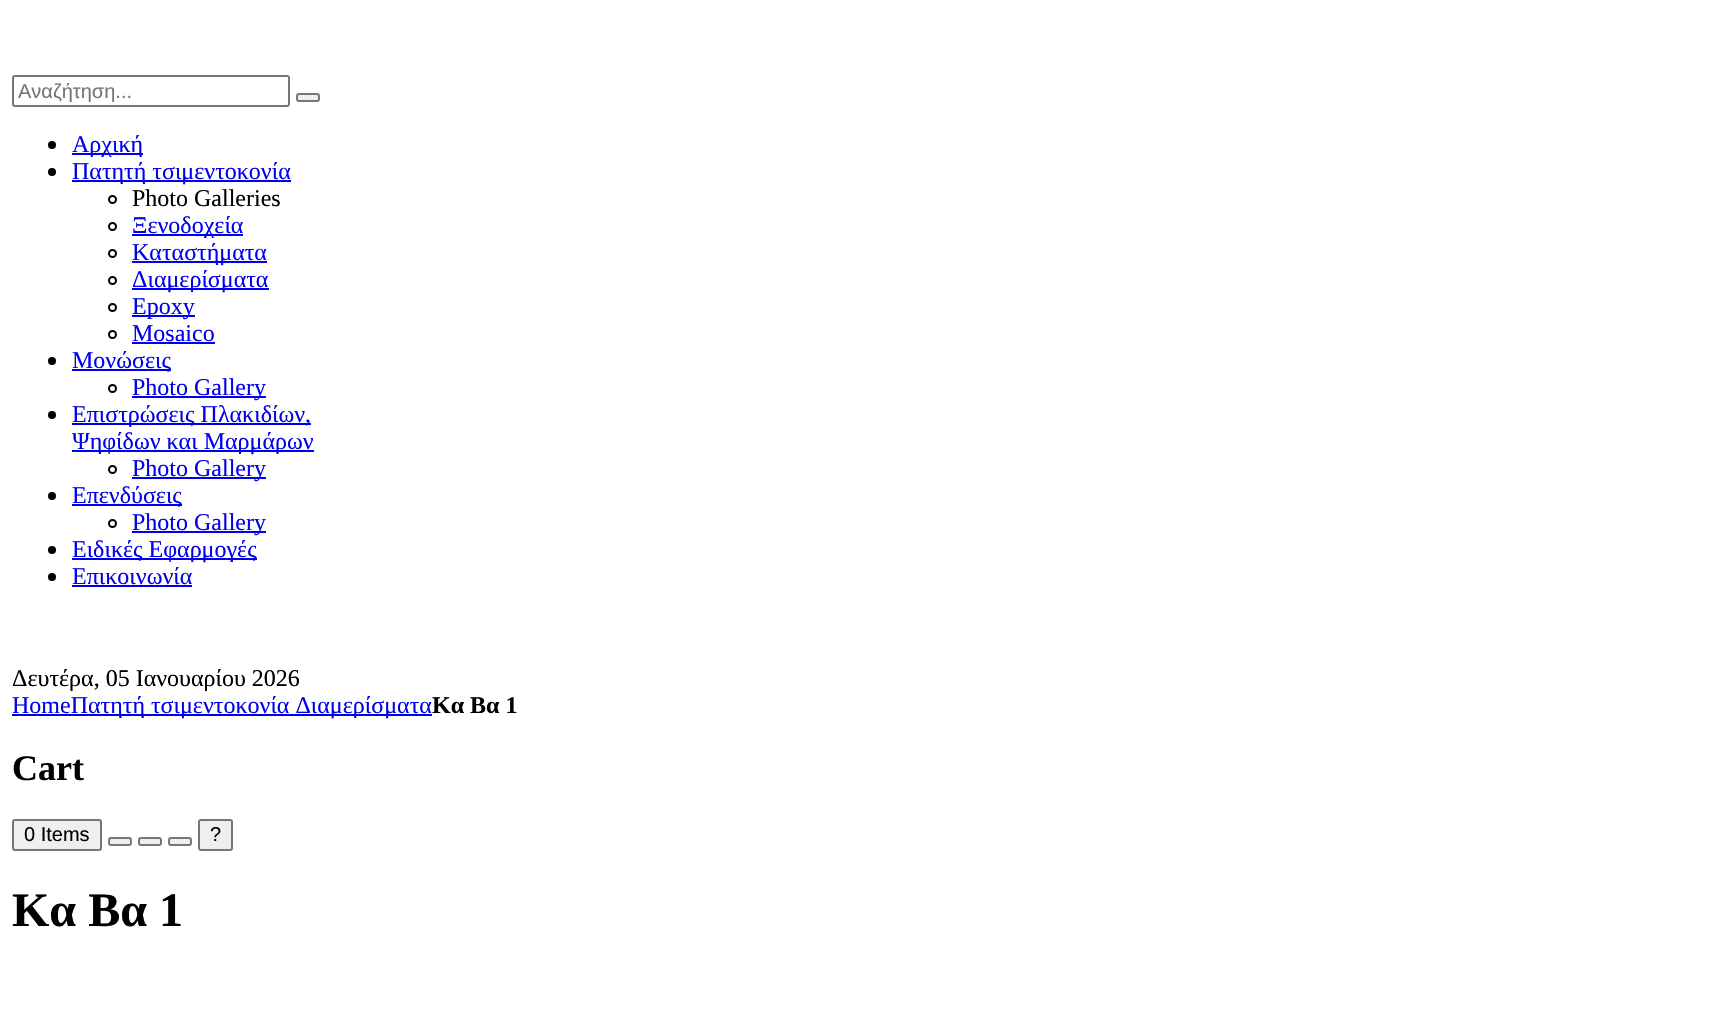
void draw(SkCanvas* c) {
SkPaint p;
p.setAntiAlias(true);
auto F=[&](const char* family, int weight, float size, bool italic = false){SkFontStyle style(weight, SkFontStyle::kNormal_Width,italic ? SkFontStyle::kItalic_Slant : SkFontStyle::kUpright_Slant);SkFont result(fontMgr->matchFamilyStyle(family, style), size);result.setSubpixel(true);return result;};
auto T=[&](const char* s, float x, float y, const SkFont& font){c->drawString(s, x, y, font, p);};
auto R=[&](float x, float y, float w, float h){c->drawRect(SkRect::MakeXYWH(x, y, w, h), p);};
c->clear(0xffffffff);
p.setStroke(true);
p.setStrokeWidth(2);
p.setColor(0xff767676);
c->drawRoundRect(SkRect::MakeXYWH(13,76,276,30),2,2,p);
c->save();
c->clipRect(SkRect::MakeXYWH(18,80,266,22));
auto f1 = F("Liberation Sans",400,20);
p.setStroke(false);
p.setColor(0xff757575);
T("Αναζήτηση...",18,98,f1);
c->restore();
p.setColor(0xffefefef);
c->drawRoundRect(SkRect::MakeXYWH(297,94,22,7),2,2,p);
p.setStroke(true);
p.setColor(0xff767676);
c->drawRoundRect(SkRect::MakeXYWH(297,94,22,7),2,2,p);
p.setStroke(false);
p.setColor(0xff000000);
c->drawCircle(52,145,4,p);
p.setColor(0xff0000ee);
R(72,153,71,2);
auto f2 = F("Liberation Serif",400,24);
T("Αρχική",72,152,f2);
p.setColor(0xff000000);
c->drawCircle(52,172,4,p);
p.setColor(0xff0000ee);
R(72,180,219,2);
T("Πατητή τσιμεντοκονία",72,179,f2);
p.setStroke(true);
p.setColor(0xff000000);
c->drawCircle(112.5,199.5,3.5,p);
p.setStroke(false);
T("Photo Galleries",132,206,f2);
p.setStroke(true);
c->drawCircle(112.5,226.5,3.5,p);
p.setStroke(false);
p.setColor(0xff0000ee);
R(132,234,111,2);
T("Ξενοδοχεία",132,233,f2);
p.setStroke(true);
p.setColor(0xff000000);
c->drawCircle(112.5,253.5,3.5,p);
p.setStroke(false);
p.setColor(0xff0000ee);
R(132,261,135,2);
T("Καταστήματα",132,260,f2);
p.setStroke(true);
p.setColor(0xff000000);
c->drawCircle(112.5,280.5,3.5,p);
p.setStroke(false);
p.setColor(0xff0000ee);
R(132,288,137,2);
T("Διαμερίσματα",132,287,f2);
p.setStroke(true);
p.setColor(0xff000000);
c->drawCircle(112.5,307.5,3.5,p);
p.setStroke(false);
p.setColor(0xff0000ee);
R(132,315,63,2);
T("Epoxy",132,314,f2);
p.setStroke(true);
p.setColor(0xff000000);
c->drawCircle(112.5,334.5,3.5,p);
p.setStroke(false);
p.setColor(0xff0000ee);
T("Mosaico",132,341,f2);
R(132,342,83,2);
p.setColor(0xff000000);
c->drawCircle(52,361,4,p);
p.setColor(0xff0000ee);
R(72,369,99,2);
T("Μονώσεις",72,368,f2);
p.setStroke(true);
p.setColor(0xff000000);
c->drawCircle(112.5,388.5,3.5,p);
p.setStroke(false);
p.setColor(0xff0000ee);
R(132,396,134,2);
T("Photo Gallery",132,395,f2);
p.setColor(0xff000000);
c->drawCircle(52,415,4,p);
p.setColor(0xff0000ee);
R(72,423,239,2);
T("Επιστρώσεις Πλακιδίων,",72,422,f2);
R(72,450,242,2);
T("Ψηφίδων και Μαρμάρων",72,449,f2);
p.setStroke(true);
p.setColor(0xff000000);
c->drawCircle(112.5,469.5,3.5,p);
p.setStroke(false);
p.setColor(0xff0000ee);
R(132,477,134,2);
T("Photo Gallery",132,476,f2);
p.setColor(0xff000000);
c->drawCircle(52,496,4,p);
p.setColor(0xff0000ee);
R(72,504,110,2);
T("Επενδύσεις",72,503,f2);
p.setStroke(true);
p.setColor(0xff000000);
c->drawCircle(112.5,523.5,3.5,p);
p.setStroke(false);
p.setColor(0xff0000ee);
R(132,531,134,2);
T("Photo Gallery",132,530,f2);
p.setColor(0xff000000);
c->drawCircle(52,550,4,p);
p.setColor(0xff0000ee);
R(72,558,185,2);
T("Ειδικές Εφαρμογές",72,557,f2);
p.setColor(0xff000000);
c->drawCircle(52,577,4,p);
p.setColor(0xff0000ee);
T("Επικοινωνία",72,584,f2);
R(72,585,120,2);
p.setColor(0xff000000);
T("Δευτέρα, 05 Ιανουαρίου 2026",12,686,f2);
p.setColor(0xff0000ee);
R(12,714,420,2);
T("HomeΠατητή τσιμεντοκονία Διαμερίσματα",12,713,f2);
auto f3 = F("Liberation Serif",700,24);
p.setColor(0xff000000);
T("Κα Βα 1",432,713,f3);
auto f4 = F("Liberation Serif",700,36);
T("Cart",12,780,f4);
p.setColor(0xffefefef);
c->drawRoundRect(SkRect::MakeXYWH(13,820,88,30),2,2,p);
p.setStroke(true);
p.setColor(0xff767676);
c->drawRoundRect(SkRect::MakeXYWH(13,820,88,30),2,2,p);
p.setStroke(false);
p.setColor(0xff000000);
T("0 Items",24,841,f1);
p.setColor(0xffefefef);
c->drawRoundRect(SkRect::MakeXYWH(109,838,22,7),2,2,p);
p.setStroke(true);
p.setColor(0xff767676);
c->drawRoundRect(SkRect::MakeXYWH(109,838,22,7),2,2,p);
p.setStroke(false);
p.setColor(0xffefefef);
c->drawRoundRect(SkRect::MakeXYWH(139,838,22,7),2,2,p);
p.setStroke(true);
p.setColor(0xff767676);
c->drawRoundRect(SkRect::MakeXYWH(139,838,22,7),2,2,p);
p.setStroke(false);
p.setColor(0xffefefef);
c->drawRoundRect(SkRect::MakeXYWH(169,838,22,7),2,2,p);
p.setStroke(true);
p.setColor(0xff767676);
c->drawRoundRect(SkRect::MakeXYWH(169,838,22,7),2,2,p);
p.setStroke(false);
p.setColor(0xffefefef);
c->drawRoundRect(SkRect::MakeXYWH(199,820,33,30),2,2,p);
p.setStroke(true);
p.setColor(0xff767676);
c->drawRoundRect(SkRect::MakeXYWH(199,820,33,30),2,2,p);
p.setStroke(false);
p.setColor(0xff000000);
T("?",210,841,f1);
auto f5 = F("Liberation Serif",700,48);
T("Κα Βα 1",12,926,f5);
}
